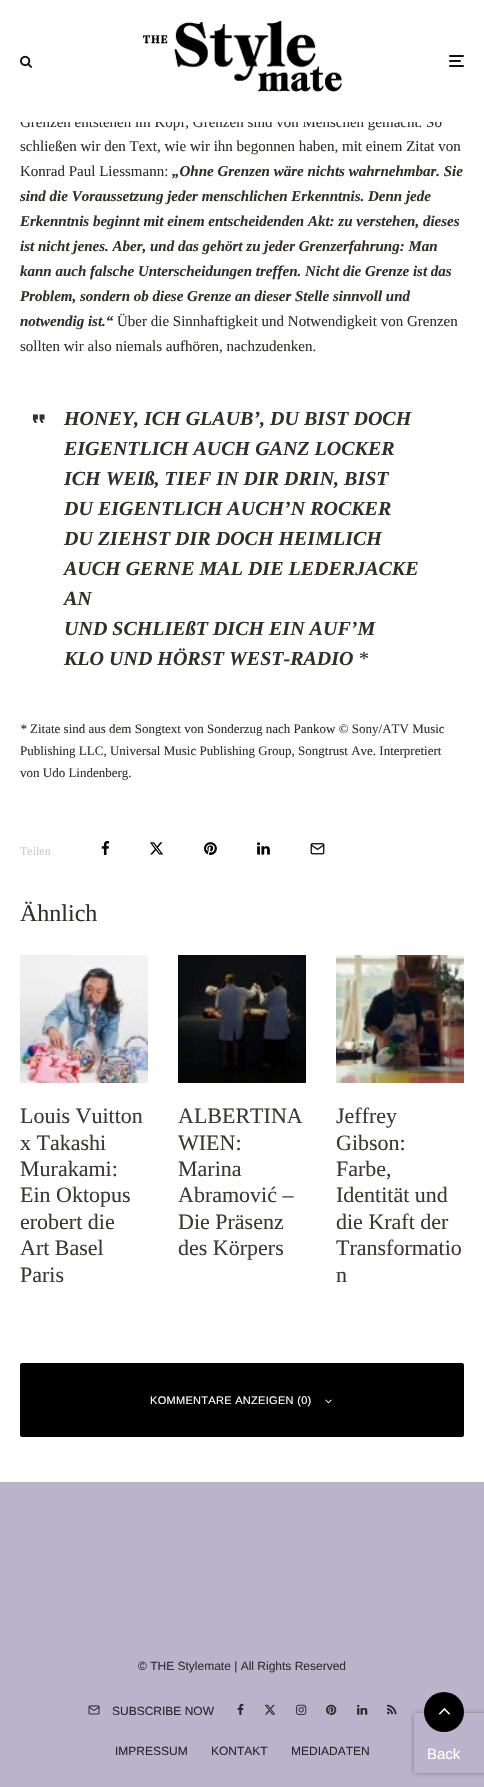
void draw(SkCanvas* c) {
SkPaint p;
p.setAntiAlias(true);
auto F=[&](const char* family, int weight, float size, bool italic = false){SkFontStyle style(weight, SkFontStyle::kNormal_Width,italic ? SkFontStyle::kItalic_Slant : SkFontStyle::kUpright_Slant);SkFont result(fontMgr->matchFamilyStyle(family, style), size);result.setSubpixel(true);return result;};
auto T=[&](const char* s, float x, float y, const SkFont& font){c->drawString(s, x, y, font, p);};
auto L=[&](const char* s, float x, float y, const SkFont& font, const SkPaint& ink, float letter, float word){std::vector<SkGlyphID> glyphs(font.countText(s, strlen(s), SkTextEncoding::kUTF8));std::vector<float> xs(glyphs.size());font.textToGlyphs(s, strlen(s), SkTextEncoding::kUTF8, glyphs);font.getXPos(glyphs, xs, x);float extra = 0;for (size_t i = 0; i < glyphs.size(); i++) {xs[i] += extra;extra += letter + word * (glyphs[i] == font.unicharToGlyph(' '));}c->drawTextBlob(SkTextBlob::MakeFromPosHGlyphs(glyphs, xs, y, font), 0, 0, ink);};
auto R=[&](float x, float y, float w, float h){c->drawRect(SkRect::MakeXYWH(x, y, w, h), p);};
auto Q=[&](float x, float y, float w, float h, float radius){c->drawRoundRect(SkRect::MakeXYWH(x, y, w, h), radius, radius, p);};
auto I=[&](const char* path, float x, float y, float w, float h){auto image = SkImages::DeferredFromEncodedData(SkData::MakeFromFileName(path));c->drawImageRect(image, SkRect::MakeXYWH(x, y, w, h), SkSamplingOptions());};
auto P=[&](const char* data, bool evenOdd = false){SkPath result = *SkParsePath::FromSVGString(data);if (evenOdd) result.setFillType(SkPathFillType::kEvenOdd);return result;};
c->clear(0xffffffff);
auto f1 = F("Liberation Serif",400,15);
p.setColor(0xff332f2c);
T("Grenzen entstehen im Kopf, Grenzen sind von Menschen gemacht. So",20,127,f1);
p.setColor(0xffffffff);
R(20,116,422,6);
I("1.png",20,55,12,13);
I("2.png",143,21,199,71);
p.setColor(0xff111111);
Q(449,60,12,2,1);
Q(449,55,15,2,1);
Q(449,65,15,2,1);
p.setColor(0xff332f2c);
T("schließen wir den Text, wie wir ihn begonnen haben, mit einem Zitat von",20,151,f1);
T("Konrad Paul Liessmann:",20,176,f1);
auto f2 = F("Liberation Serif",700,15,true);
T("„Ohne Grenzen wäre nichts wahrnehmbar. Sie",172,176,f2);
T("sind die Voraussetzung jeder menschlichen Erkenntnis. Denn jede",20,201,f2);
T("Erkenntnis beginnt mit einem entscheidenden Akt: zu verstehen, dieses",20,226,f2);
T("ist nicht jenes. Aber, und das gehört zu jeder Grenzerfahrung: Man",20,251,f2);
T("kann auch falsche Unterscheidungen treffen. Nicht die Grenze ist das",20,276,f2);
T("Problem, sondern ob diese Grenze an dieser Stelle sinnvoll und",20,301,f2);
T("notwendig ist.“",20,326,f2);
T("Über die Sinnhaftigkeit und Notwendigkeit von Grenzen",117,326,f1);
T("sollten wir also niemals aufhören, nachzudenken.",20,351,f1);
I("3.png",32,414,13,9);
auto f3 = F("Liberation Serif",700,20,true);
T("HONEY, ICH GLAUB’, DU BIST DOCH",64,425,f3);
T("EIGENTLICH AUCH GANZ LOCKER",64,455,f3);
T("ICH WEIß, TIEF IN DIR DRIN, BIST",64,485,f3);
T("DU EIGENTLICH AUCH’N ROCKER",64,515,f3);
T("DU ZIEHST DIR DOCH HEIMLICH",64,545,f3);
T("AUCH GERNE MAL DIE LEDERJACKE",64,575,f3);
T("AN",64,605,f3);
T("UND SCHLIEßT DICH EIN AUF’M",64,635,f3);
T("KLO UND HÖRST WEST-RADIO",64,665,f3);
auto f4 = F("Liberation Serif",400,20);
T("*",359,665,f4);
auto f5 = F("Liberation Serif",400,13,true);
T("*",20,733,f5);
auto f6 = F("Liberation Serif",400,13);
T("Zitate sind aus dem Songtext von Sonderzug nach Pankow © Sony/ATV Music",30,733,f6);
T("Publishing LLC, Universal Music Publishing Group, Songtrust Ave. Interpretiert",20,755,f6);
T("von Udo Lindenberg.",20,777,f6);
auto f7 = F("Liberation Serif",400,12);
p.setColor(0xffcccccc);
T("Teilen",20,855,f7);
I("4.png",101,841,9,14);
I("5.png",149,842,15,13);
I("6.png",204,842,13,13);
I("7.png",257,842,13,13);
I("8.png",310,843,15,12);
auto f8 = F("Liberation Serif",400,24);
p.setColor(0xff332f2c);
T("Ähnlich",20,921,f8);
I("9.png",20,955,128,128);
auto f9 = F("Liberation Serif",400,22);
p.setColor(0xff3d3835);
T("Louis Vuitton",20,1123,f9);
T("x Takashi",20,1150,f9);
T("Murakami:",20,1176,f9);
T("Ein Oktopus",20,1202,f9);
T("erobert die",20,1229,f9);
T("Art Basel",20,1255,f9);
T("Paris",20,1282,f9);
I("10.png",178,955,128,128);
T("ALBERTINA",178,1123,f9);
T("WIEN:",178,1150,f9);
T("Marina",178,1176,f9);
T("Abramović –",178,1202,f9);
T("Die Präsenz",178,1229,f9);
T("des Körpers",178,1255,f9);
I("11.png",336,955,128,128);
T("Jeffrey",336,1123,f9);
T("Gibson:",336,1150,f9);
T("Farbe,",336,1176,f9);
T("Identität und",336,1202,f9);
T("die Kraft der",336,1229,f9);
T("Transformatio",336,1255,f9);
T("n",336,1282,f9);
p.setColor(0xff000000);
Q(20,1363,444,74,2);
auto f10 = F("Liberation Sans",400,11);
p.setColor(0xffffffff);
L("KOMMENTARE ANZEIGEN (0)",150,1404,f10,p,.3,0);
I("12.png",325,1399,7,5);
p.setColor(0xffb9b3cc);
R(0,1482,484,305);
auto f11 = F("Liberation Sans",400,12);
p.setColor(0xff332f2c);
T("© THE Stylemate | All Rights Reserved",138,1670,f11);
I("13.png",88,1705,12,10);
p.setColor(0xff272727);
T("SUBSCRIBE NOW",112,1715,f11);
I("14.png",237,1703,7,12);
I("15.png",264,1704,12,11);
I("16.png",296,1704,11,11);
I("17.png",326,1704,11,11);
I("18.png",357,1704,11,11);
I("19.png",387,1704,10,11);
T("IMPRESSUM",115,1755,f11);
T("KONTAKT",211,1755,f11);
T("MEDIADATEN",291,1755,f11);
c->save();
c->clipPath(P("M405 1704h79v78h-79zm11 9h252c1 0 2 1 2 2v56c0 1-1 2-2 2h-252c-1 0-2-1-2-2v-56c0-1 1-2 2-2z",true),true);
p.setColor(0xff808080);
p.setMaskFilter(SkMaskFilter::MakeBlur(kNormal_SkBlurStyle, 2.5));
c->drawRoundRect(SkRect::MakeXYWH(414,1713,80,60),2,2,p);
p.setMaskFilter(nullptr);
c->restore();
p.setColor(0xff000000);
c->drawCircle(444,1712,20,p);
I("20.png",438,1708,12,7);
auto f12 = F("Liberation Sans",400,15);
p.setColor(0xffffffff);
T("Back",427,1759,f12);
}
